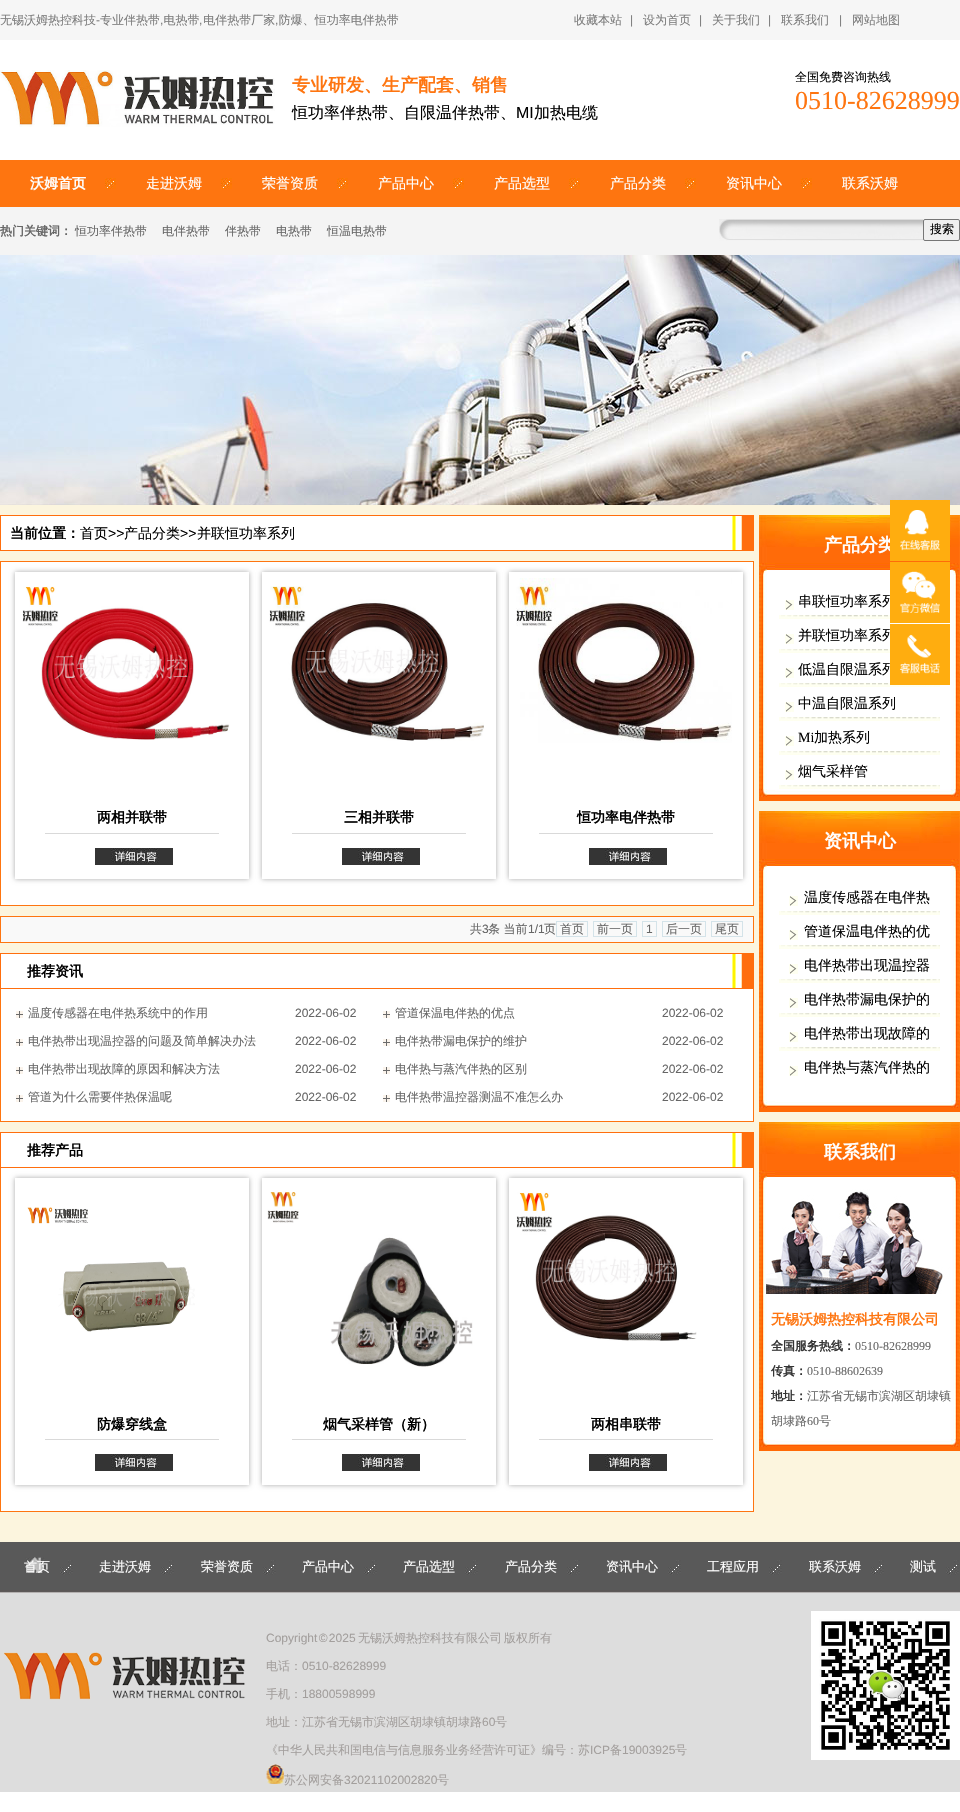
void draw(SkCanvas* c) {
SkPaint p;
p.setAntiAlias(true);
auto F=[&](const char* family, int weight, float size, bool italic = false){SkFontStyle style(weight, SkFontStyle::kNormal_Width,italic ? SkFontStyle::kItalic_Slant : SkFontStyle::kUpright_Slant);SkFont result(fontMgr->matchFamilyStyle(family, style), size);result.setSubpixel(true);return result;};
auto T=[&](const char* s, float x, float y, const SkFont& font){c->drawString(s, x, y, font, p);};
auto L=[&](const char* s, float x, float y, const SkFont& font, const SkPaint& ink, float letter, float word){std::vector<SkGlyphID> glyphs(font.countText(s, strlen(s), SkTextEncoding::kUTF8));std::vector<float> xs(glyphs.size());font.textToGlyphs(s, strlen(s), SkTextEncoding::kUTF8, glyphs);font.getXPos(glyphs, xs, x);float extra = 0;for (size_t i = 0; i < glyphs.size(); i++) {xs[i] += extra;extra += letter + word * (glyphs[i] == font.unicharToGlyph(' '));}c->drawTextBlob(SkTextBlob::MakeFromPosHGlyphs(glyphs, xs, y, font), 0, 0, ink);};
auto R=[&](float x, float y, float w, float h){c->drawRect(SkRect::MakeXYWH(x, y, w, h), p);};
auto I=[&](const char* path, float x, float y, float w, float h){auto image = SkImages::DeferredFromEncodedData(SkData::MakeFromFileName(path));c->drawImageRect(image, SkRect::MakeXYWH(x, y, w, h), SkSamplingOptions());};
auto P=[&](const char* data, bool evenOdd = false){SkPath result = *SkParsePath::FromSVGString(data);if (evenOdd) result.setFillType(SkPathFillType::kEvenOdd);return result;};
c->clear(0xffffffff);
p.setColor(0xfffcf5de);
R(0,505,960,1037);
I("1.png",0,0,960,160);
auto f1 = F("WenQuanYi Zen Hei",500,12);
p.setColor(0xff7c7c7c);
T("无锡沃姆热控科技",0,24,f1);
auto f2 = F("Liberation Sans",400,12);
T("-",96,24,f2);
T("专业伴热带 电热带 电伴热带厂家 防爆、恒功率电伴热带",100,24,f1);
T("收藏本站",574,24,f1);
T("|",630,24,f2);
T("设为首页",643,24,f1);
T("|",699,24,f2);
T("关于我们",712,24,f1);
T("|",768,24,f2);
T("联系我们",781,24,f1);
T("|",839,24,f2);
T("网站地图",852,24,f1);
T(",",160,24,f2);
T(",",199,24,f2);
T(",",275,24,f2);
I("2.png",0,70,275,57);
auto f3 = F("WenQuanYi Zen Hei",700,18);
p.setColor(0xfffe7510);
T("专业研发、生产配套、销售",292,91,f3);
auto f4 = F("WenQuanYi Zen Hei",500,16);
p.setColor(0xff000000);
T("恒功率伴热带、自限温伴热带、",292,118,f4);
auto f5 = F("Liberation Sans",400,16);
T("MI",516,118,f5);
T("加热电缆",534,118,f4);
T("全国免费咨询热线",795,81,f1);
auto f6 = F("Liberation Serif",400,26);
p.setColor(0xfffe7510);
T("0510-82628999",795,109,f6);
R(0,160,960,47);
I("3.png",105,178,11,11);
auto f7 = F("WenQuanYi Zen Hei",700,14);
p.setColor(0xffffffff);
T("沃姆首页",30,188,f7);
I("3.png",221,178,11,11);
auto f8 = F("WenQuanYi Zen Hei",500,14);
T("走进沃姆",146,188,f8);
I("3.png",337,178,11,11);
T("荣誉资质",262,188,f8);
I("3.png",453,178,11,11);
T("产品中心",378,188,f8);
I("3.png",569,178,11,11);
T("产品选型",494,188,f8);
I("3.png",685,178,11,11);
T("产品分类",610,188,f8);
I("3.png",801,178,11,11);
T("资讯中心",726,188,f8);
T("联系沃姆",842,188,f8);
p.setColor(0xfff4f4f4);
R(0,207,960,48);
auto f9 = F("WenQuanYi Zen Hei",700,12);
p.setColor(0xff666666);
T("热门关键词：",0,235,f9);
T("恒功率伴热带",75,235,f1);
T("电伴热带",162,235,f1);
T("伴热带",225,235,f1);
T("电热带",276,235,f1);
T("恒温电热带",327,235,f1);
I("4.png",719,219,204,22);
p.setColor(0xffefefef);
c->drawRoundRect(SkRect::MakeXYWH(923.5,219.5,36,21),1.5,1.5,p);
p.setStroke(true);
p.setStrokeWidth(1);
p.setColor(0xff767676);
c->drawRoundRect(SkRect::MakeXYWH(923.5,219.5,36,21),1.5,1.5,p);
p.setStroke(false);
p.setColor(0xff000000);
T("搜索",930,233,f1);
I("8.png",0,255,960,250);
I("18.png",759,515,201,60);
p.setColor(0xffffffff);
T("产品分类",824,551,f3);
p.setColor(0xffffad0f);
R(890,500,60,61);
I("5.png",900,510,40,41);
I("19.png",759,575,201,214);
p.setColor(0xff000000);
T("串联恒功率系列",798,606,f8);
p.setColor(0xffffad0f);
R(890,562,60,61);
I("6.png",900,571,40,42);
p.setColor(0xff000000);
T("并联恒功率系列",798,640,f8);
I("22.png",779,683,161,4);
T("低温自限温系列",798,674,f8);
p.setColor(0xffffad0f);
R(890,624,60,61);
I("7.png",900,634,40,40);
I("9.png",0,515,754,36);
p.setColor(0xff000000);
T("当前位置：",10,538,f7);
T("首页",80,538,f8);
auto f10 = F("Liberation Sans",400,14);
T(">>",108,538,f10);
T("产品分类",124,538,f8);
T(">>",180,538,f10);
T("并联恒功率系列",197,538,f8);
p.setColor(0xffffffff);
c->drawRect(SkRect::MakeXYWH(.5,561.5,753,344),p);
p.setStroke(true);
p.setColor(0xfffe7510);
c->drawRect(SkRect::MakeXYWH(.5,561.5,753,344),p);
c->save();
c->clipPath(P("M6 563h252v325h-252zm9 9h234v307h-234z",true),true);
p.setStroke(false);
p.setColor(0xffaaaaaa);
p.setMaskFilter(SkMaskFilter::MakeBlur(kNormal_SkBlurStyle, 2.5));
c->drawRect(SkRect::MakeXYWH(15,572,234,307),p);
p.setMaskFilter(nullptr);
c->restore();
I("10.png",22,586,208,154);
p.setColor(0xffd9d9d9);
R(45,833,174,1);
p.setColor(0xff000000);
T("两相并联带",97,822,f7);
I("11.png",95,848,78,17);
c->save();
c->clipPath(P("M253 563h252v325h-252zm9 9h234v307h-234z",true),true);
p.setColor(0xffaaaaaa);
p.setMaskFilter(SkMaskFilter::MakeBlur(kNormal_SkBlurStyle, 2.5));
c->drawRect(SkRect::MakeXYWH(262,572,234,307),p);
p.setMaskFilter(nullptr);
c->restore();
I("12.png",269,586,215,155);
p.setColor(0xffd9d9d9);
R(292,833,174,1);
p.setColor(0xff000000);
T("三相并联带",344,822,f7);
I("11.png",342,848,78,17);
c->save();
c->clipPath(P("M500 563h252v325h-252zm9 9h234v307h-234z",true),true);
p.setColor(0xffaaaaaa);
p.setMaskFilter(SkMaskFilter::MakeBlur(kNormal_SkBlurStyle, 2.5));
c->drawRect(SkRect::MakeXYWH(509,572,234,307),p);
p.setMaskFilter(nullptr);
c->restore();
I("13.png",516,578,216,165);
p.setColor(0xffd9d9d9);
R(539,833,174,1);
p.setColor(0xff000000);
T("恒功率电伴热带",577,822,f7);
I("11.png",589,848,78,17);
p.setColor(0xfff9f9f9);
c->drawRect(SkRect::MakeXYWH(.5,916.5,753,26),p);
p.setStroke(true);
p.setColor(0xfffe7510);
c->drawRect(SkRect::MakeXYWH(.5,916.5,753,26),p);
p.setStroke(false);
p.setColor(0xff666666);
T("共",470,933,f1);
T("3",482,933,f2);
T("条 当前",488,933,f1);
T("1/1",528,933,f2);
T("页",544,933,f1);
p.setStroke(true);
p.setColor(0xffd4e3e9);
c->drawRect(SkRect::MakeXYWH(556.5,921.5,31,15),p);
p.setStroke(false);
p.setColor(0xff666666);
T("首页",560,933,f1);
p.setStroke(true);
p.setColor(0xffd4e3e9);
c->drawRect(SkRect::MakeXYWH(593.5,921.5,43,15),p);
p.setStroke(false);
p.setColor(0xff666666);
T("前一页",597,933,f1);
p.setStroke(true);
p.setColor(0xffd4e3e9);
c->drawRect(SkRect::MakeXYWH(642.5,921.5,14,15),p);
p.setStroke(false);
p.setColor(0xff666666);
T("1",646,933,f2);
p.setStroke(true);
p.setColor(0xffd4e3e9);
c->drawRect(SkRect::MakeXYWH(662.5,921.5,43,15),p);
p.setStroke(false);
p.setColor(0xff666666);
T("后一页",666,933,f1);
p.setStroke(true);
p.setColor(0xffd4e3e9);
c->drawRect(SkRect::MakeXYWH(711.5,921.5,31,15),p);
p.setStroke(false);
p.setColor(0xff666666);
T("尾页",715,933,f1);
I("9.png",0,953,754,36);
p.setColor(0xff000000);
T("推荐资讯",27,976,f7);
p.setColor(0xffffffff);
R(1,989,752,132);
p.setColor(0xfffe7510);
R(753,989,1,133);
R(0,1121,754,1);
R(0,989,1,133);
I("14.png",16,1011,7,7);
p.setColor(0xff666666);
T("温度传感器在电伴热系统中的作用",28,1017,f1);
T("2022-06-02",295,1017,f2);
I("14.png",383,1011,7,7);
T("管道保温电伴热的优点",395,1017,f1);
T("2022-06-02",662,1017,f2);
I("14.png",16,1039,7,7);
T("电伴热带出现温控器的问题及简单解决办法",28,1045,f1);
T("2022-06-02",295,1045,f2);
I("14.png",383,1039,7,7);
T("电伴热带漏电保护的维护",395,1045,f1);
T("2022-06-02",662,1045,f2);
I("14.png",16,1067,7,7);
T("电伴热带出现故障的原因和解决方法",28,1073,f1);
T("2022-06-02",295,1073,f2);
I("14.png",383,1067,7,7);
T("电伴热与蒸汽伴热的区别",395,1073,f1);
T("2022-06-02",662,1073,f2);
I("14.png",16,1095,7,7);
T("管道为什么需要伴热保温呢",28,1101,f1);
T("2022-06-02",295,1101,f2);
I("14.png",383,1095,7,7);
T("电伴热带温控器测温不准怎么办",395,1101,f1);
T("2022-06-02",662,1101,f2);
I("9.png",0,1132,754,36);
p.setColor(0xff000000);
T("推荐产品",27,1155,f7);
p.setColor(0xffffffff);
R(1,1168,752,343);
p.setColor(0xfffe7510);
R(753,1168,1,344);
R(0,1511,754,1);
R(0,1168,1,344);
c->save();
c->clipPath(P("M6 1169h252v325h-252zm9 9h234v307h-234z",true),true);
p.setColor(0xffaaaaaa);
p.setMaskFilter(SkMaskFilter::MakeBlur(kNormal_SkBlurStyle, 2.5));
c->drawRect(SkRect::MakeXYWH(15,1178,234,307),p);
p.setMaskFilter(nullptr);
c->restore();
I("15.png",27,1207,168,125);
p.setColor(0xffd9d9d9);
R(45,1439,174,1);
p.setColor(0xff000000);
T("防爆穿线盒",97,1429,f7);
I("11.png",95,1454,78,17);
c->save();
c->clipPath(P("M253 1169h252v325h-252zm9 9h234v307h-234z",true),true);
p.setColor(0xffaaaaaa);
p.setMaskFilter(SkMaskFilter::MakeBlur(kNormal_SkBlurStyle, 2.5));
c->drawRect(SkRect::MakeXYWH(262,1178,234,307),p);
p.setMaskFilter(nullptr);
c->restore();
I("16.png",267,1192,206,175);
p.setColor(0xffd9d9d9);
R(292,1439,174,1);
p.setColor(0xff000000);
T("烟气采样管（新）",323,1429,f7);
I("11.png",342,1454,78,17);
c->save();
c->clipPath(P("M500 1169h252v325h-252zm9 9h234v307h-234z",true),true);
p.setColor(0xffaaaaaa);
p.setMaskFilter(SkMaskFilter::MakeBlur(kNormal_SkBlurStyle, 2.5));
c->drawRect(SkRect::MakeXYWH(509,1178,234,307),p);
p.setMaskFilter(nullptr);
c->restore();
I("17.png",516,1192,181,149);
p.setColor(0xffd9d9d9);
R(539,1439,174,1);
p.setColor(0xff000000);
T("两相串联带",591,1429,f7);
I("11.png",589,1454,78,17);
I("20.png",779,615,111,4);
I("21.png",785,600,9,10);
I("20.png",779,649,111,4);
I("21.png",785,634,9,10);
I("21.png",785,668,9,10);
I("22.png",779,717,161,4);
I("21.png",785,702,9,10);
T("中温自限温系列",798,708,f8);
I("22.png",779,751,161,4);
I("21.png",785,736,9,10);
auto f11 = F("Liberation Serif",400,14);
T("Mi",798,742,f11);
T("加热系列",814,742,f8);
I("22.png",779,785,161,4);
I("21.png",785,770,9,10);
T("烟气采样管",798,776,f8);
I("23.png",759,789,201,12);
I("18.png",759,811,201,60);
p.setColor(0xffffffff);
T("资讯中心",824,847,f3);
I("24.png",759,871,201,229);
I("22.png",779,911,161,4);
I("21.png",789,896,9,10);
p.setColor(0xff000000);
T("温度传感器在电伴热",804,902,f8);
I("22.png",779,945,161,4);
I("21.png",789,930,9,10);
T("管道保温电伴热的优",804,936,f8);
I("22.png",779,979,161,4);
I("21.png",789,964,9,10);
T("电伴热带出现温控器",804,970,f8);
I("22.png",779,1013,161,4);
I("21.png",789,998,9,10);
T("电伴热带漏电保护的",804,1004,f8);
I("22.png",779,1047,161,4);
I("21.png",789,1032,9,10);
T("电伴热带出现故障的",804,1038,f8);
I("21.png",789,1066,9,10);
T("电伴热与蒸汽伴热的",804,1072,f8);
I("23.png",759,1100,201,12);
I("18.png",759,1122,201,60);
p.setColor(0xffffffff);
T("联系我们",824,1158,f3);
I("25.png",759,1182,201,257);
I("26.png",766,1189,186,105);
p.setColor(0xfffe7510);
T("无锡沃姆热控科技有限公司",771,1324,f7);
p.setColor(0xff343434);
T("全国服务热线：",771,1350,f9);
auto f12 = F("Liberation Serif",400,12);
p.setColor(0xff666666);
T("0510-82628999",855,1350,f12);
p.setColor(0xff343434);
T("传真：",771,1375,f9);
p.setColor(0xff666666);
T("0510-88602639",807,1375,f12);
p.setColor(0xff343434);
T("地址：",771,1400,f9);
p.setColor(0xff666666);
T("江苏省无锡市滨湖区胡埭镇",807,1400,f1);
T("胡埭路",771,1425,f1);
T("60",807,1425,f12);
T("号",819,1425,f1);
I("23.png",759,1439,201,12);
p.setColor(0xffdddddd);
R(0,1593,960,199);
I("27.png",0,1542,960,51);
I("28.png",25,1557,20,16);
I("29.png",60,1560,13,15);
auto f13 = F("WenQuanYi Zen Hei",500,13);
p.setColor(0xffffffff);
T("首页",24,1571,f13);
I("29.png",161,1560,13,15);
T("走进沃姆",99,1571,f13);
I("29.png",263,1560,13,15);
T("荣誉资质",201,1571,f13);
I("29.png",364,1560,13,15);
T("产品中心",302,1571,f13);
I("29.png",465,1560,13,15);
T("产品选型",403,1571,f13);
I("29.png",567,1560,13,15);
T("产品分类",505,1571,f13);
I("29.png",668,1560,13,15);
T("资讯中心",606,1571,f13);
I("29.png",769,1560,13,15);
T("工程应用",707,1571,f13);
I("29.png",871,1560,13,15);
T("联系沃姆",809,1571,f13);
I("29.png",946,1560,13,15);
T("测试",910,1571,f13);
I("30.png",3,1652,243,48);
p.setColor(0xffa39f9d);
L("Copyright © 2025",266,1642,f2,p,0,-2);
T("无锡沃姆热控科技有限公司",358,1642,f1);
T("版权所有",504,1642,f1);
T("电话：",266,1670,f1);
T("0510-82628999",302,1670,f2);
T("手机：",266,1698,f1);
T("18800598999",302,1698,f2);
T("地址：江苏省无锡市滨湖区胡埭镇胡埭路",266,1726,f1);
T("60",482,1726,f2);
T("号",495,1726,f1);
T("《中华人民共和国电信与信息服务业务经营许可证》编号：苏",266,1754,f1);
T("ICP",590,1754,f2);
T("备",610,1754,f1);
T("19003925",622,1754,f2);
T("号",675,1754,f1);
I("31.png",266,1764,18,20);
T("苏公网安备",284,1784,f1);
T("32021102002820",344,1784,f2);
T("号",437,1784,f1);
I("32.png",811,1611,149,149);
}
